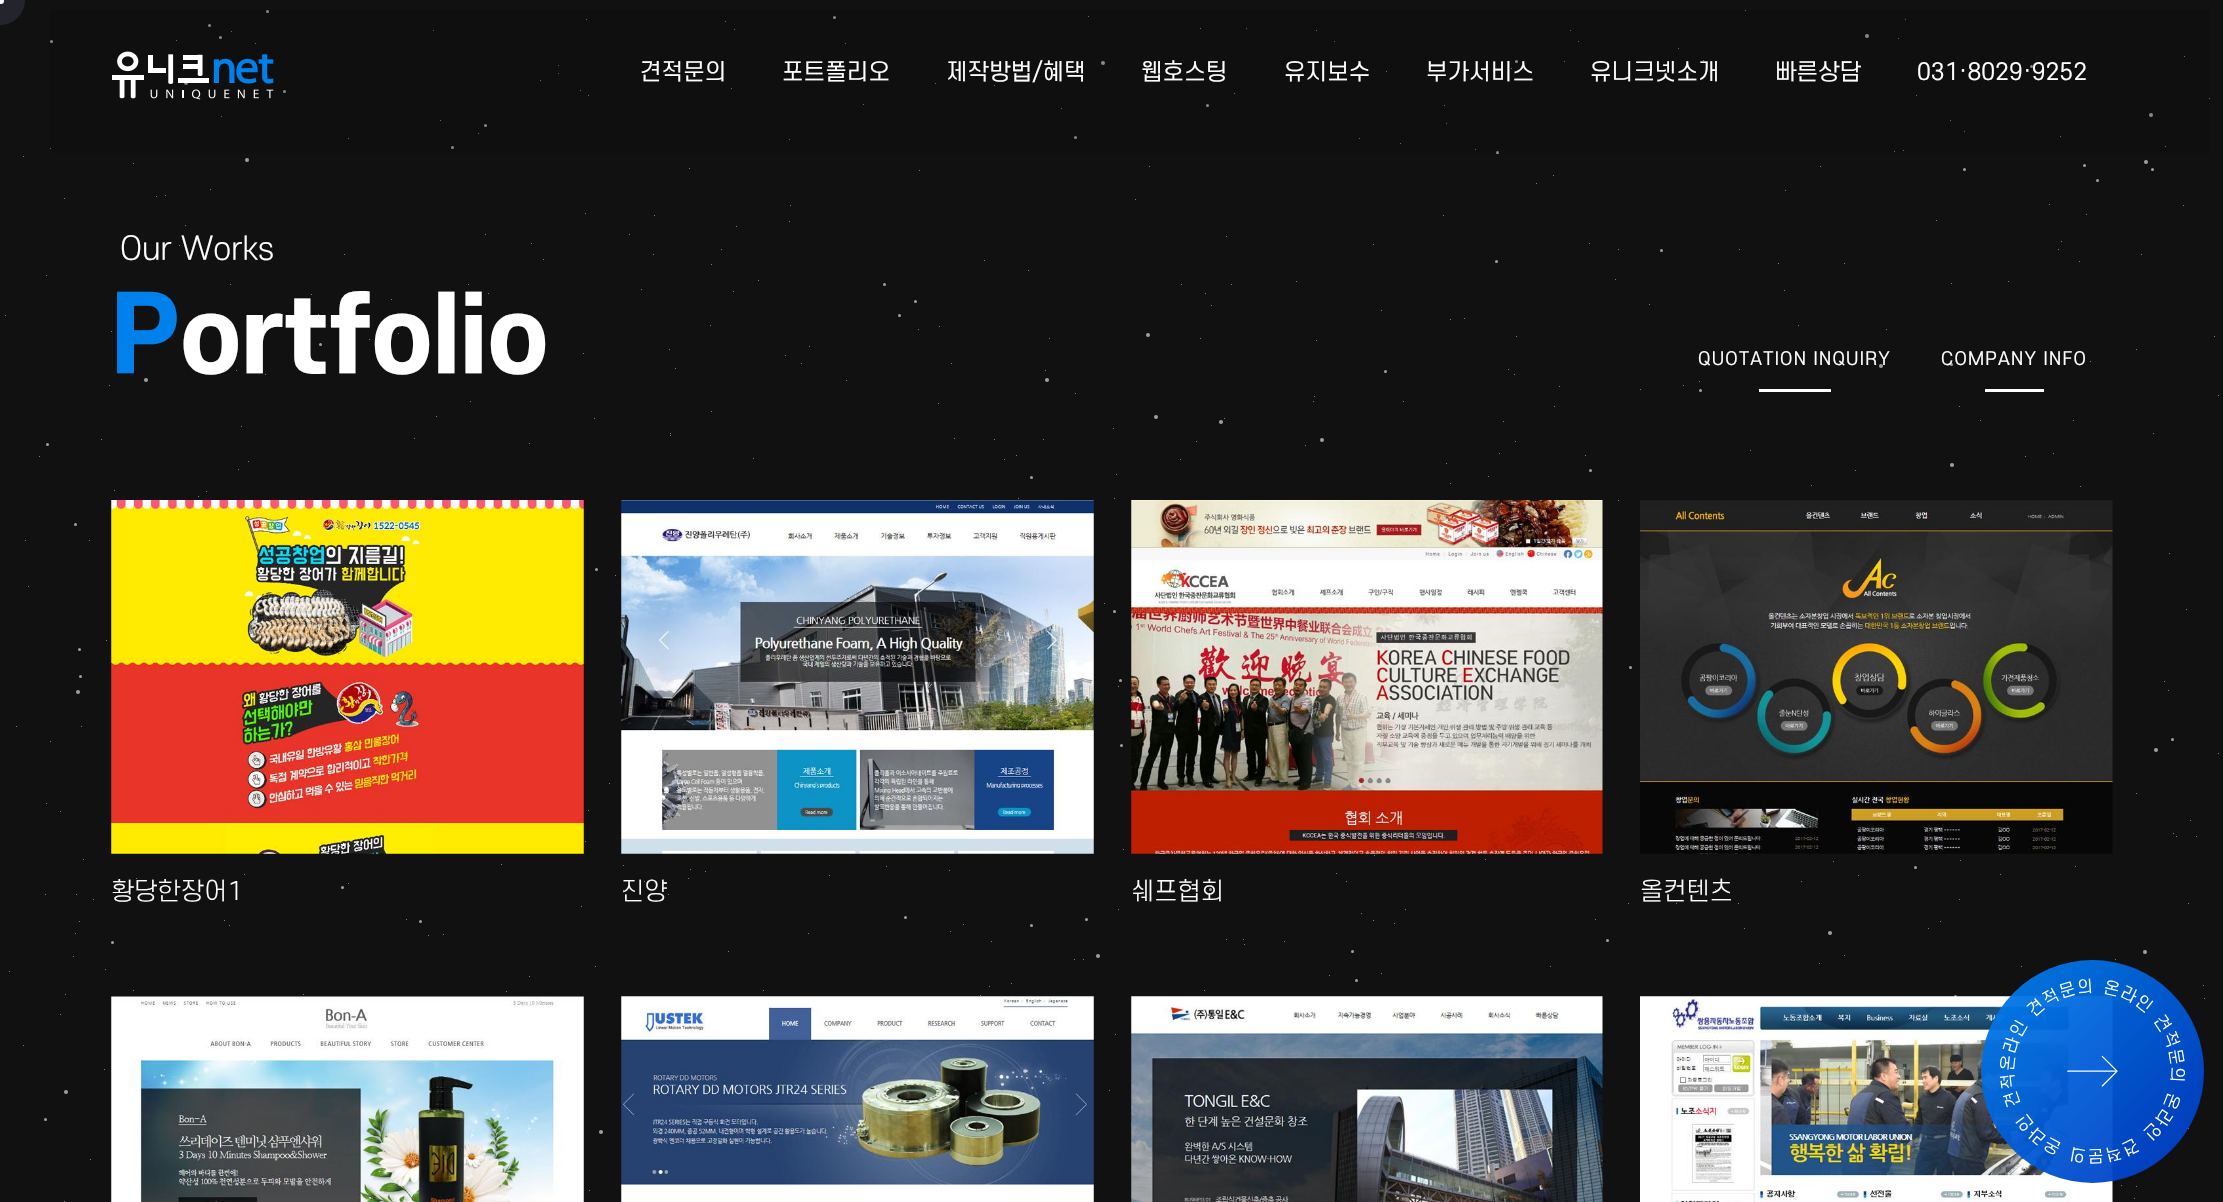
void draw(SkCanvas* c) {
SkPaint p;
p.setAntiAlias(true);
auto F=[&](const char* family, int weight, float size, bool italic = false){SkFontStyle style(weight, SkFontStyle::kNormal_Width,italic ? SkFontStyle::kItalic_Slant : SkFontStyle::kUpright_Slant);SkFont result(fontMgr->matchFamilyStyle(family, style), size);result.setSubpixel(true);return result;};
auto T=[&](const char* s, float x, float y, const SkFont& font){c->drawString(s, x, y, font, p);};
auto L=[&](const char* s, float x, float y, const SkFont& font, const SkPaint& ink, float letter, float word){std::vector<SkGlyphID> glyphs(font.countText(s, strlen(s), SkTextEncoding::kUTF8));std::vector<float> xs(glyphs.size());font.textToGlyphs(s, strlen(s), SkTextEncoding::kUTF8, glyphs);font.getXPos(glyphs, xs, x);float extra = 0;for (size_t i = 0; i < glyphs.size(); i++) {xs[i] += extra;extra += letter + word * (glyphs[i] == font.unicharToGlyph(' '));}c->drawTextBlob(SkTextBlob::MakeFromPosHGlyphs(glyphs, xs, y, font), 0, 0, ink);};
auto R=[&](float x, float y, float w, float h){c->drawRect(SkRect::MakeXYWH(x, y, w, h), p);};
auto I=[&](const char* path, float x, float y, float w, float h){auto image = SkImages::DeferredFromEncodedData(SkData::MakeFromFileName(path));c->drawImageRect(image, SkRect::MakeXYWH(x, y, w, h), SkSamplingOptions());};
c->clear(0xff111111);
p.setColor(0xffa0a0a0);
c->drawCircle(2000.5,874.5,.5,p);
c->drawCircle(1149.5,166.5,.5,p);
c->drawCircle(1246.5,28.5,.5,p);
c->drawCircle(248.5,461.5,.5,p);
c->drawCircle(73.5,956.5,.5,p);
c->drawCircle(886.5,866.5,.5,p);
c->drawCircle(1951.5,283.5,.5,p);
c->drawCircle(1739.5,249.5,.5,p);
c->drawCircle(846.5,380.5,.5,p);
c->drawCircle(60.5,1014.5,.5,p);
c->drawCircle(1959.5,406.5,.5,p);
c->drawCircle(585.5,213.5,.5,p);
c->drawCircle(1618.5,500.5,.5,p);
c->drawCircle(2053.5,453.5,.5,p);
c->drawCircle(1858.5,875.5,.5,p);
c->drawCircle(1049.5,338.5,.5,p);
c->drawCircle(39.5,456.5,.5,p);
c->drawCircle(763.5,990.5,.5,p);
c->drawCircle(1550.5,966.5,.5,p);
c->drawCircle(1798.5,325.5,.5,p);
c->drawCircle(1313.5,401.5,.5,p);
c->drawCircle(348.5,883.5,.5,p);
c->drawCircle(50.5,148.5,.5,p);
c->drawCircle(1205.5,293.5,.5,p);
c->drawCircle(1243.5,939.5,.5,p);
c->drawCircle(478.5,133.5,.5,p);
c->drawCircle(9.5,971.5,.5,p);
c->drawCircle(23.5,156.5,.5,p);
c->drawCircle(1649.5,304.5,.5,p);
c->drawCircle(2060.5,136.5,.5,p);
c->drawCircle(1083.5,959.5,.5,p);
c->drawCircle(785.5,355.5,.5,p);
c->drawCircle(690.5,869.5,.5,p);
c->drawCircle(1018.5,498.5,.5,p);
c->drawCircle(104.5,1069.5,.5,p);
c->drawCircle(1905.5,19.5,.5,p);
c->drawCircle(2009.5,363.5,.5,p);
c->drawCircle(994.5,85.5,.5,p);
c->drawCircle(2169.5,553.5,.5,p);
c->drawCircle(1115.5,1034.5,.5,p);
c->drawCircle(1464.5,318.5,.5,p);
c->drawCircle(1204.5,990.5,.5,p);
c->drawCircle(1503.5,421.5,.5,p);
c->drawCircle(950.5,931.5,.5,p);
c->drawCircle(1231.5,284.5,.5,p);
c->drawCircle(470.5,401.5,.5,p);
c->drawCircle(623.5,865.5,.5,p);
c->drawCircle(2164.5,681.5,.5,p);
c->drawCircle(2090.5,361.5,.5,p);
c->drawCircle(588.5,95.5,.5,p);
c->drawCircle(2186.5,609.5,.5,p);
c->drawCircle(443.5,934.5,.5,p);
c->drawCircle(488.5,293.5,.5,p);
c->drawCircle(1400.5,143.5,.5,p);
c->drawCircle(2119.5,1135.5,.5,p);
c->drawCircle(989.5,986.5,.5,p);
c->drawCircle(1116.5,474.5,.5,p);
c->drawCircle(318.5,314.5,.5,p);
c->drawCircle(1585.5,455.5,.5,p);
c->drawCircle(1515.5,441.5,.5,p);
c->drawCircle(1386.5,71.5,.5,p);
c->drawCircle(2153.5,433.5,.5,p);
c->drawCircle(1940.5,921.5,.5,p);
c->drawCircle(935.5,83.5,.5,p);
c->drawCircle(2188.5,903.5,.5,p);
c->drawCircle(2196.5,836.5,.5,p);
c->drawCircle(1819.5,963.5,.5,p);
c->drawCircle(344.5,254.5,.5,p);
c->drawCircle(1200.5,338.5,.5,p);
c->drawCircle(1329.5,975.5,.5,p);
c->drawCircle(1801.5,881.5,.5,p);
c->drawCircle(436.5,416.5,.5,p);
c->drawCircle(615.5,575.5,.5,p);
c->drawCircle(226.5,364.5,.5,p);
c->drawCircle(1628.5,903.5,.5,p);
c->drawCircle(829.5,875.5,.5,p);
c->drawCircle(954.5,438.5,.5,p);
c->drawCircle(1211.5,305.5,.5,p);
c->drawCircle(1745.5,10.5,.5,p);
c->drawCircle(1855.5,470.5,.5,p);
c->drawCircle(789.5,221.5,.5,p);
c->drawCircle(1075.5,393.5,.5,p);
c->drawCircle(45.5,894.5,.5,p);
c->drawCircle(93.5,899.5,.5,p);
c->drawCircle(136.5,878.5,.5,p);
c->drawCircle(1618.5,249.5,.5,p);
c->drawCircle(980.5,995.5,.5,p);
c->drawCircle(594.5,418.5,.5,p);
c->drawCircle(1381.5,310.5,.5,p);
c->drawCircle(1578.5,41.5,.5,p);
c->drawCircle(2080.5,486.5,.5,p);
c->drawCircle(25.5,540.5,.5,p);
c->drawCircle(75.5,933.5,.5,p);
c->drawCircle(1683.5,385.5,.5,p);
c->drawCircle(64.5,198.5,.5,p);
c->drawCircle(2165.5,146.5,.5,p);
c->drawCircle(50.5,741.5,.5,p);
c->drawCircle(1744.5,928.5,.5,p);
c->drawCircle(1296.5,281.5,.5,p);
c->drawCircle(2136.5,1186.5,.5,p);
c->drawCircle(2121.5,1185.5,.5,p);
c->drawCircle(629.5,234.5,.5,p);
c->drawCircle(689.5,168.5,.5,p);
c->drawCircle(1016.5,455.5,.5,p);
c->drawCircle(144.5,340.5,.5,p);
c->drawCircle(1785.5,190.5,.5,p);
c->drawCircle(428.5,935.5,.5,p);
c->drawCircle(2184.5,56.5,.5,p);
c->drawCircle(994.5,439.5,.5,p);
c->drawCircle(1903.5,150.5,.5,p);
c->drawCircle(801.5,363.5,.5,p);
c->drawCircle(76.5,894.5,.5,p);
c->drawCircle(2218.5,753.5,.5,p);
c->drawCircle(653.5,254.5,.5,p);
c->drawCircle(1394.5,923.5,.5,p);
c->drawCircle(1446.5,123.5,.5,p);
c->drawCircle(1118.5,909.5,.5,p);
c->drawCircle(1374.5,855.5,.5,p);
c->drawCircle(244.5,874.5,.5,p);
c->drawCircle(28.5,586.5,.5,p);
c->drawCircle(23.5,1045.5,.5,p);
c->drawCircle(658.5,893.5,.5,p);
c->drawCircle(938.5,403.5,.5,p);
c->drawCircle(1444.5,105.5,.5,p);
c->drawCircle(2168.5,690.5,.5,p);
c->drawCircle(585.5,841.5,.5,p);
c->drawCircle(2021.5,966.5,.5,p);
c->drawCircle(1964.5,131.5,.5,p);
c->drawCircle(711.5,264.5,.5,p);
c->drawCircle(231.5,358.5,.5,p);
c->drawCircle(1123.5,849.5,.5,p);
c->drawCircle(353.5,305.5,.5,p);
c->drawCircle(753.5,458.5,.5,p);
c->drawCircle(46.5,803.5,.5,p);
c->drawCircle(105.5,969.5,.5,p);
c->drawCircle(1373.5,244.5,.5,p);
c->drawCircle(918.5,329.5,.5,p);
c->drawCircle(1346.5,881.5,.5,p);
c->drawCircle(348.5,138.5,.5,p);
c->drawCircle(506.5,991.5,.5,p);
c->drawCircle(581.5,906.5,.5,p);
c->drawCircle(156.5,196.5,.5,p);
c->drawCircle(83.5,859.5,.5,p);
c->drawCircle(529.5,976.5,.5,p);
c->drawCircle(1045.5,370.5,.5,p);
c->drawCircle(2136.5,349.5,.5,p);
c->drawCircle(1488.5,476.5,.5,p);
c->drawCircle(668.5,894.5,.5,p);
c->drawCircle(2086.5,214.5,.5,p);
c->drawCircle(185.5,225.5,.5,p);
c->drawCircle(440.5,120.5,.5,p);
c->drawCircle(531.5,243.5,.5,p);
c->drawCircle(2073.5,420.5,.5,p);
c->drawCircle(2136.5,793.5,.5,p);
c->drawCircle(2061.5,241.5,.5,p);
c->drawCircle(165.5,195.5,.5,p);
c->drawCircle(229.5,925.5,.5,p);
c->drawCircle(210.5,189.5,.5,p);
c->drawCircle(133.5,163.5,.5,p);
c->drawCircle(1676.5,903.5,.5,p);
c->drawCircle(238.5,469.5,.5,p);
c->drawCircle(623.5,890.5,.5,p);
c->drawCircle(65.5,994.5,.5,p);
c->drawCircle(939.5,326.5,.5,p);
c->drawCircle(1678.5,48.5,.5,p);
c->drawCircle(1361.5,913.5,.5,p);
c->drawCircle(529.5,443.5,.5,p);
c->drawCircle(1784.5,290.5,.5,p);
c->drawCircle(2188.5,1128.5,.5,p);
c->drawCircle(1980.5,420.5,.5,p);
c->drawCircle(2049.5,204.5,.5,p);
c->drawCircle(236.5,370.5,.5,p);
c->drawCircle(1043.5,439.5,.5,p);
c->drawCircle(1820.5,166.5,.5,p);
c->drawCircle(1284.5,941.5,.5,p);
c->drawCircle(111.5,331.5,.5,p);
c->drawCircle(1181.5,284.5,.5,p);
c->drawCircle(2209.5,98.5,.5,p);
c->drawCircle(1516.5,336.5,.5,p);
c->drawCircle(588.5,810.5,.5,p);
c->drawCircle(1334.5,41.5,.5,p);
c->drawCircle(1514.5,374.5,.5,p);
c->drawCircle(589.5,1190.5,.5,p);
c->drawCircle(255.5,43.5,.5,p);
c->drawCircle(133.5,990.5,.5,p);
c->drawCircle(1224.5,418.5,.5,p);
c->drawCircle(669.5,349.5,.5,p);
c->drawCircle(46.5,275.5,.5,p);
c->drawCircle(540.5,80.5,.5,p);
c->drawCircle(2176.5,836.5,.5,p);
c->drawCircle(2214.5,336.5,.5,p);
c->drawCircle(688.5,878.5,.5,p);
c->drawCircle(1088.5,16.5,.5,p);
c->drawCircle(809.5,346.5,.5,p);
c->drawCircle(1075.5,137.5,1.5,p);
c->drawCircle(51.5,41.5,1.5,p);
c->drawCircle(342.5,887.5,1.5,p);
c->drawCircle(884.5,284.5,1.5,p);
c->drawCircle(1120.5,680.5,1.5,p);
c->drawCircle(45.5,1119.5,1.5,p);
c->drawCircle(1121.5,745.5,1.5,p);
c->drawCircle(2084.5,165.5,1.5,p);
c->drawCircle(2172.5,739.5,1.5,p);
c->drawCircle(1955.5,996.5,1.5,p);
c->drawCircle(452.5,147.5,1.5,p);
c->drawCircle(1964.5,169.5,1.5,p);
c->drawCircle(1496.5,261.5,1.5,p);
c->drawCircle(2031.5,66.5,1.5,p);
c->drawCircle(1590.5,470.5,1.5,p);
c->drawCircle(1385.5,371.5,1.5,p);
c->drawCircle(2097.5,180.5,1.5,p);
c->drawCircle(1915.5,867.5,1.5,p);
c->drawCircle(1700.5,390.5,1.5,p);
c->drawCircle(1086.5,919.5,1.5,p);
c->drawCircle(905.5,917.5,1.5,p);
c->drawCircle(1031.5,477.5,1.5,p);
c->drawCircle(209.5,25.5,1.5,p);
c->drawCircle(1516.5,61.5,1.5,p);
c->drawCircle(2152.5,169.5,1.5,p);
c->drawCircle(80.5,676.5,1.5,p);
c->drawCircle(834.5,17.5,1.5,p);
c->drawCircle(915.5,301.5,1.5,p);
c->drawCircle(1210.5,889.5,1.5,p);
c->drawCircle(899.5,315.5,1.5,p);
c->drawCircle(220.5,37.5,1.5,p);
c->drawCircle(1207.5,105.5,1.5,p);
c->drawCircle(1630.5,667.5,1.5,p);
c->drawCircle(284.5,91.5,1.5,p);
c->drawCircle(420.5,921.5,1.5,p);
c->drawCircle(1352.5,951.5,1.5,p);
c->drawCircle(1114.5,611.5,1.5,p);
c->drawCircle(417.5,331.5,1.5,p);
c->drawCircle(1661.5,250.5,1.5,p);
c->drawCircle(75.5,524.5,1.5,p);
c->drawCircle(47.5,444.5,1.5,p);
c->drawCircle(267.5,11.5,1.5,p);
c->drawCircle(1497.5,152.5,1.5,p);
c->drawCircle(320.5,344.5,1.5,p);
c->drawCircle(1031.5,925.5,1.5,p);
c->drawCircle(1951.5,364.5,1.5,p);
c->drawCircle(79.5,649.5,1.5,p);
c->drawCircle(112.5,942.5,1.5,p);
c->drawCircle(1607.5,940.5,1.5,p);
c->drawCircle(596.5,569.5,1.5,p);
c->drawCircle(1356.5,980.5,1.5,p);
c->drawCircle(485.5,125.5,1.5,p);
c->drawCircle(790.5,205.5,.5,p);
c->drawCircle(734.5,29.5,.5,p);
c->drawCircle(1234.5,93.5,.5,p);
c->drawCircle(2204.5,998.5,.5,p);
c->drawCircle(1699.5,381.5,.5,p);
c->drawCircle(2058.5,249.5,.5,p);
c->drawCircle(670.5,433.5,.5,p);
c->drawCircle(241.5,426.5,.5,p);
c->drawCircle(2115.5,959.5,.5,p);
c->drawCircle(731.5,88.5,.5,p);
c->drawCircle(1405.5,909.5,.5,p);
c->drawCircle(1316.5,30.5,.5,p);
c->drawCircle(221.5,116.5,.5,p);
c->drawCircle(758.5,280.5,.5,p);
c->drawCircle(1894.5,151.5,.5,p);
c->drawCircle(5.5,315.5,.5,p);
c->drawCircle(1559.5,386.5,.5,p);
c->drawCircle(2146.5,1074.5,.5,p);
c->drawCircle(1589.5,243.5,.5,p);
c->drawCircle(949.5,870.5,.5,p);
c->drawCircle(1715.5,889.5,.5,p);
c->drawCircle(1959.5,899.5,.5,p);
c->drawCircle(1499.5,453.5,.5,p);
c->drawCircle(60.5,811.5,.5,p);
c->drawCircle(1511.5,68.5,.5,p);
c->drawCircle(1936.5,220.5,.5,p);
c->drawCircle(1703.5,60.5,.5,p);
c->drawCircle(2075.5,866.5,.5,p);
c->drawCircle(609.5,783.5,.5,p);
c->drawCircle(669.5,71.5,.5,p);
c->drawCircle(1109.5,1090.5,.5,p);
c->drawCircle(789.5,139.5,.5,p);
c->drawCircle(106.5,640.5,.5,p);
c->drawCircle(501.5,864.5,.5,p);
c->drawCircle(583.5,353.5,.5,p);
c->drawCircle(586.5,19.5,.5,p);
c->drawCircle(721.5,249.5,.5,p);
c->drawCircle(670.5,435.5,.5,p);
c->drawCircle(369.5,339.5,.5,p);
c->drawCircle(644.5,881.5,.5,p);
c->drawCircle(1898.5,38.5,.5,p);
c->drawCircle(1536.5,183.5,.5,p);
c->drawCircle(558.5,65.5,.5,p);
c->drawCircle(1554.5,406.5,.5,p);
c->drawCircle(64.5,1201.5,.5,p);
c->drawCircle(2141.5,254.5,.5,p);
c->drawCircle(224.5,920.5,.5,p);
c->drawCircle(1226.5,939.5,.5,p);
c->drawCircle(1833.5,861.5,.5,p);
c->drawCircle(1180.5,459.5,.5,p);
c->drawCircle(1104.5,603.5,.5,p);
c->drawCircle(1475.5,149.5,.5,p);
c->drawCircle(728.5,951.5,.5,p);
c->drawCircle(558.5,73.5,.5,p);
c->drawCircle(2173.5,833.5,.5,p);
c->drawCircle(290.5,320.5,.5,p);
c->drawCircle(303.5,994.5,.5,p);
c->drawCircle(90.5,1159.5,.5,p);
c->drawCircle(2134.5,1198.5,.5,p);
c->drawCircle(963.5,924.5,.5,p);
c->drawCircle(863.5,104.5,.5,p);
c->drawCircle(1118.5,686.5,.5,p);
c->drawCircle(1381.5,973.5,.5,p);
c->drawCircle(1778.5,263.5,.5,p);
c->drawCircle(1738.5,903.5,.5,p);
c->drawCircle(984.5,260.5,.5,p);
c->drawCircle(1706.5,901.5,.5,p);
c->drawCircle(733.5,291.5,.5,p);
c->drawCircle(1446.5,463.5,.5,p);
c->drawCircle(1450.5,483.5,.5,p);
c->drawCircle(1314.5,396.5,.5,p);
c->drawCircle(1113.5,428.5,.5,p);
c->drawCircle(2008.5,281.5,.5,p);
c->drawCircle(1553.5,175.5,.5,p);
c->drawCircle(1960.5,860.5,.5,p);
c->drawCircle(2203.5,985.5,.5,p);
c->drawCircle(1934.5,74.5,.5,p);
c->drawCircle(1508.5,369.5,.5,p);
c->drawCircle(1004.5,459.5,.5,p);
c->drawCircle(1196.5,441.5,.5,p);
c->drawCircle(1114.5,498.5,.5,p);
c->drawCircle(1950.5,120.5,.5,p);
c->drawCircle(114.5,490.5,.5,p);
c->drawCircle(101.5,439.5,.5,p);
c->drawCircle(1570.5,30.5,.5,p);
c->drawCircle(1928.5,928.5,.5,p);
c->drawCircle(1316.5,340.5,.5,p);
c->drawCircle(1615.5,279.5,.5,p);
c->drawCircle(1336.5,873.5,.5,p);
c->drawCircle(654.5,215.5,.5,p);
c->drawCircle(1564.5,61.5,.5,p);
c->drawCircle(1200.5,28.5,.5,p);
c->drawCircle(206.5,491.5,.5,p);
c->drawCircle(675.5,368.5,.5,p);
c->drawCircle(109.5,385.5,.5,p);
c->drawCircle(736.5,226.5,.5,p);
c->drawCircle(433.5,30.5,.5,p);
c->drawCircle(79.5,921.5,.5,p);
c->drawCircle(641.5,289.5,.5,p);
c->drawCircle(991.5,941.5,.5,p);
c->drawCircle(1059.5,65.5,.5,p);
c->drawCircle(2218.5,395.5,.5,p);
c->drawCircle(1028.5,270.5,.5,p);
c->drawCircle(1305.5,445.5,.5,p);
c->drawCircle(1135.5,199.5,.5,p);
c->drawCircle(2190.5,820.5,.5,p);
c->drawCircle(179.5,245.5,.5,p);
c->drawCircle(2183.5,205.5,.5,p);
c->drawCircle(2025.5,456.5,.5,p);
c->drawCircle(951.5,363.5,.5,p);
c->drawCircle(1403.5,401.5,.5,p);
c->drawCircle(231.5,31.5,.5,p);
c->drawCircle(1373.5,920.5,.5,p);
c->drawCircle(81.5,726.5,.5,p);
c->drawCircle(1061.5,108.5,.5,p);
c->drawCircle(1226.5,236.5,.5,p);
c->drawCircle(16.5,726.5,.5,p);
c->drawCircle(1595.5,919.5,.5,p);
c->drawCircle(705.5,871.5,.5,p);
c->drawCircle(1011.5,983.5,.5,p);
c->drawCircle(711.5,411.5,.5,p);
c->drawCircle(265.5,374.5,.5,p);
c->drawCircle(1074.5,959.5,.5,p);
c->drawCircle(1916.5,95.5,.5,p);
c->drawCircle(725.5,21.5,.5,p);
c->drawCircle(198.5,496.5,.5,p);
c->drawCircle(1485.5,859.5,.5,p);
c->drawCircle(1750.5,450.5,.5,p);
c->drawCircle(311.5,294.5,.5,p);
c->drawCircle(543.5,259.5,.5,p);
c->drawCircle(391.5,299.5,.5,p);
c->drawCircle(468.5,284.5,.5,p);
c->drawCircle(2079.5,261.5,.5,p);
c->drawCircle(485.5,234.5,.5,p);
c->drawCircle(1640.5,389.5,.5,p);
c->drawCircle(919.5,170.5,.5,p);
c->drawCircle(89.5,540.5,.5,p);
c->drawCircle(1844.5,263.5,.5,p);
c->drawCircle(406.5,919.5,.5,p);
c->drawCircle(230.5,284.5,.5,p);
c->drawCircle(595.5,966.5,.5,p);
c->drawCircle(176.5,40.5,.5,p);
c->drawCircle(1886.5,329.5,.5,p);
c->drawCircle(710.5,325.5,.5,p);
c->drawCircle(398.5,333.5,.5,p);
c->drawCircle(1844.5,955.5,.5,p);
c->drawCircle(845.5,43.5,.5,p);
c->drawCircle(1359.5,138.5,.5,p);
c->drawCircle(1443.5,215.5,.5,p);
c->drawCircle(1244.5,944.5,.5,p);
c->drawCircle(1811.5,485.5,.5,p);
c->drawCircle(1450.5,319.5,.5,p);
c->drawCircle(414.5,438.5,.5,p);
c->drawCircle(580.5,90.5,.5,p);
c->drawCircle(808.5,933.5,.5,p);
c->drawCircle(1830,933,2,p);
c->drawCircle(146,380,2,p);
c->drawCircle(1156,417,2,p);
c->drawCircle(2145,952,2,p);
c->drawCircle(186,83,2,p);
c->drawCircle(1322,440,2,p);
c->drawCircle(601,1132,2,p);
c->drawCircle(2156,750,2,p);
c->drawCircle(66,1092,2,p);
c->drawCircle(2151,115,2,p);
c->drawCircle(78,692,2,p);
c->drawCircle(247,160,2,p);
c->drawCircle(1221,422,2,p);
c->drawCircle(2146,162,2,p);
c->drawCircle(1881,366,2,p);
c->drawCircle(1952,465,2,p);
c->drawCircle(1867,36,2,p);
c->drawCircle(1098,956,2,p);
c->drawCircle(1103,63,2,p);
c->drawCircle(1148,335,2,p);
c->drawCircle(1047,380,2,p);
p.setColor(0xff24252c);
c->drawCircle(0,0,25,p);
p.setColor(0xffffffff);
c->drawCircle(1,1,3,p);
p.setColor(0x26000000);
R(50,10,2160,143);
I("1.png",112,51,162,49);
auto f1 = F("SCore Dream",400,22.5);
p.setColor(0xffffffff);
T("견적문의",640,80,f1);
T("포트폴리오",782,80,f1);
T("제작방법/혜택",946,80,f1);
T("웹호스팅",1141,80,f1);
T("유지보수",1284,80,f1);
T("부가서비스",1426,80,f1);
T("유니크넷소개",1590,80,f1);
T("빠른상담",1775,80,f1);
T("031·8029·9252",1917,80,f1);
auto f2 = F("SCore Dream",300,31.5);
T("Our Works",120,260,f2);
auto f3 = F("SCore Dream",800,103);
p.setColor(0xff0080eb);
T("P",111,373,f3);
p.setColor(0xffffffff);
T("ortfolio",180,373,f3);
auto f4 = F("SCore Dream",400,17.5);
L("QUOTATION INQUIRY",1698,365,f4,p,1.25,0);
R(1759,389,72,3);
L("COMPANY INFO",1941,365,f4,p,1.25,0);
R(1985,389,59,3);
I("2.png",111,500,473,354);
auto f5 = F("SCore Dream",300,24.25);
T("황당한장어1",111,900,f5);
I("3.png",621,500,473,354);
T("진양",621,900,f5);
I("4.png",1131,500,472,354);
T("쉐프협회",1131,900,f5);
I("5.png",1640,500,473,354);
T("올컨텐츠",1640,900,f5);
I("6.png",111,996,473,206);
I("7.png",621,996,473,206);
I("8.png",1131,996,472,206);
I("9.png",1640,996,473,206);
{
const SkColor colors[] = {0xf20080eb,0xf20036c0};
const float stops[] = {0,1};
const SkPoint ends[] = {{1981,960}, {2204,1183}};
p.setShader(SkGradientShader::MakeLinear(ends, colors, stops, 2, SkTileMode::kClamp));
p.setAlpha(255);
}
c->drawCircle(2092.5,1071.5,111.5,p);
I("10.png",1999,978,186,186);
}
